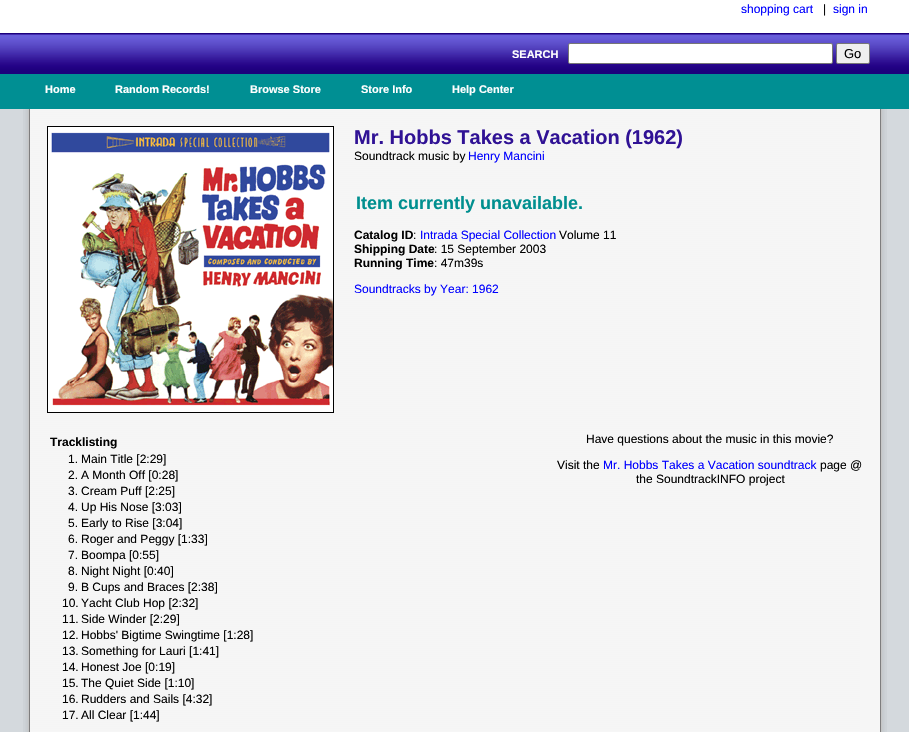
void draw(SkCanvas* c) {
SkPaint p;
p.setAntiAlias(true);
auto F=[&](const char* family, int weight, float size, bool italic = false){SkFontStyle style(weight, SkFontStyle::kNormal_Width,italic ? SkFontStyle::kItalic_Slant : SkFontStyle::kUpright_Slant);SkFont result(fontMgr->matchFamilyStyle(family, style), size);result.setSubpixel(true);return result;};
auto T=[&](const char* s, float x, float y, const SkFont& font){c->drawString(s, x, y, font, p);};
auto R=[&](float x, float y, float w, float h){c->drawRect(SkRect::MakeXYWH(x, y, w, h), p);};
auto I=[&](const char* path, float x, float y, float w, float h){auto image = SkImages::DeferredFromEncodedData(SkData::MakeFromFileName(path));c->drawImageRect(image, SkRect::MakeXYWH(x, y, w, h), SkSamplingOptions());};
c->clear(0xffffffff);
auto f1 = F("Liberation Sans",400,12);
p.setColor(0xff0000ff);
T("shopping cart",741,13,f1);
p.setColor(0xff000000);
T("|",823,13,f1);
p.setColor(0xff0000ff);
T("sign in",833,13,f1);
I("1.png",0,33,909,41);
auto f2 = F("Liberation Sans",700,11);
p.setColor(0xffffffff);
T("SEARCH",512,58,f2);
c->drawRoundRect(SkRect::MakeXYWH(568.5,43.5,264,20),1.5,1.5,p);
p.setStroke(true);
p.setStrokeWidth(1);
p.setColor(0xff767676);
c->drawRoundRect(SkRect::MakeXYWH(568.5,43.5,264,20),1.5,1.5,p);
p.setStroke(false);
p.setColor(0xffefefef);
c->drawRoundRect(SkRect::MakeXYWH(836.5,43.5,33,20),1.5,1.5,p);
p.setStroke(true);
p.setColor(0xff767676);
c->drawRoundRect(SkRect::MakeXYWH(836.5,43.5,33,20),1.5,1.5,p);
auto f3 = F("Liberation Sans",400,13);
p.setStroke(false);
p.setColor(0xff000000);
T("Go",844,58,f3);
p.setColor(0xff008f93);
R(0,74,909,35);
p.setColor(0xffffffff);
T("Home",45,93,f2);
T("Random Records!",115,93,f2);
T("Browse Store",250,93,f2);
T("Store Info",361,93,f2);
T("Help Center",452,93,f2);
p.setColor(0xffd4d9dd);
R(0,109,909,623);
I("2.png",23,109,864,623);
p.setStroke(true);
p.setColor(0xff000000);
c->drawRect(SkRect::MakeXYWH(47.5,126.5,286,286),p);
I("3.png",48,127,285,285);
auto f4 = F("Liberation Sans",700,20);
p.setStroke(false);
p.setColor(0xff301295);
T("Mr. Hobbs Takes a Vacation (1962)",354,144,f4);
p.setColor(0xff000000);
T("Soundtrack music by",354,160,f1);
p.setColor(0xff0000ff);
T("Henry Mancini",468,160,f1);
auto f5 = F("Liberation Sans",700,18);
p.setColor(0xff008f8f);
T("Item currently unavailable.",356,209,f5);
auto f6 = F("Liberation Sans",700,12);
p.setColor(0xff000000);
T("Catalog ID",354,239,f6);
T(":",413,239,f1);
p.setColor(0xff0000ff);
T("Intrada Special Collection",420,239,f1);
p.setColor(0xff000000);
T("Volume 11",559,239,f1);
T("Shipping Date",354,253,f6);
T(": 15 September 2003",434,253,f1);
T("Running Time",354,267,f6);
T(": 47m39s",434,267,f1);
p.setColor(0xff0000ff);
T("Soundtracks by Year: 1962",354,293,f1);
p.setColor(0xff000000);
T("Tracklisting",50,446,f6);
T("1.",68,463,f1);
T("Main Title [2:29]",81,463,f1);
T("2.",68,479,f1);
T("A Month Off [0:28]",81,479,f1);
T("3.",68,495,f1);
T("Cream Puff [2:25]",81,495,f1);
T("4.",68,511,f1);
T("Up His Nose [3:03]",81,511,f1);
T("5.",68,527,f1);
T("Early to Rise [3:04]",81,527,f1);
T("6.",68,543,f1);
T("Roger and Peggy [1:33]",81,543,f1);
T("7.",68,559,f1);
T("Boompa [0:55]",81,559,f1);
T("8.",68,575,f1);
T("Night Night [0:40]",81,575,f1);
T("9.",68,591,f1);
T("B Cups and Braces [2:38]",81,591,f1);
T("10.",62,607,f1);
T("Yacht Club Hop [2:32]",81,607,f1);
T("11.",62,623,f1);
T("Side Winder [2:29]",81,623,f1);
T("12.",62,639,f1);
T("Hobbs' Bigtime Swingtime [1:28]",81,639,f1);
T("13.",62,655,f1);
T("Something for Lauri [1:41]",81,655,f1);
T("14.",62,671,f1);
T("Honest Joe [0:19]",81,671,f1);
T("15.",62,687,f1);
T("The Quiet Side [1:10]",81,687,f1);
T("16.",62,703,f1);
T("Rudders and Sails [4:32]",81,703,f1);
T("17.",62,719,f1);
T("All Clear [1:44]",81,719,f1);
T("Have questions about the music in this movie?",586,443,f1);
T("Visit the",557,469,f1);
p.setColor(0xff0000ff);
T("Mr. Hobbs Takes a Vacation soundtrack",603,469,f1);
p.setColor(0xff000000);
T("page @",820,469,f1);
T("the SoundtrackINFO project",636,483,f1);
}
